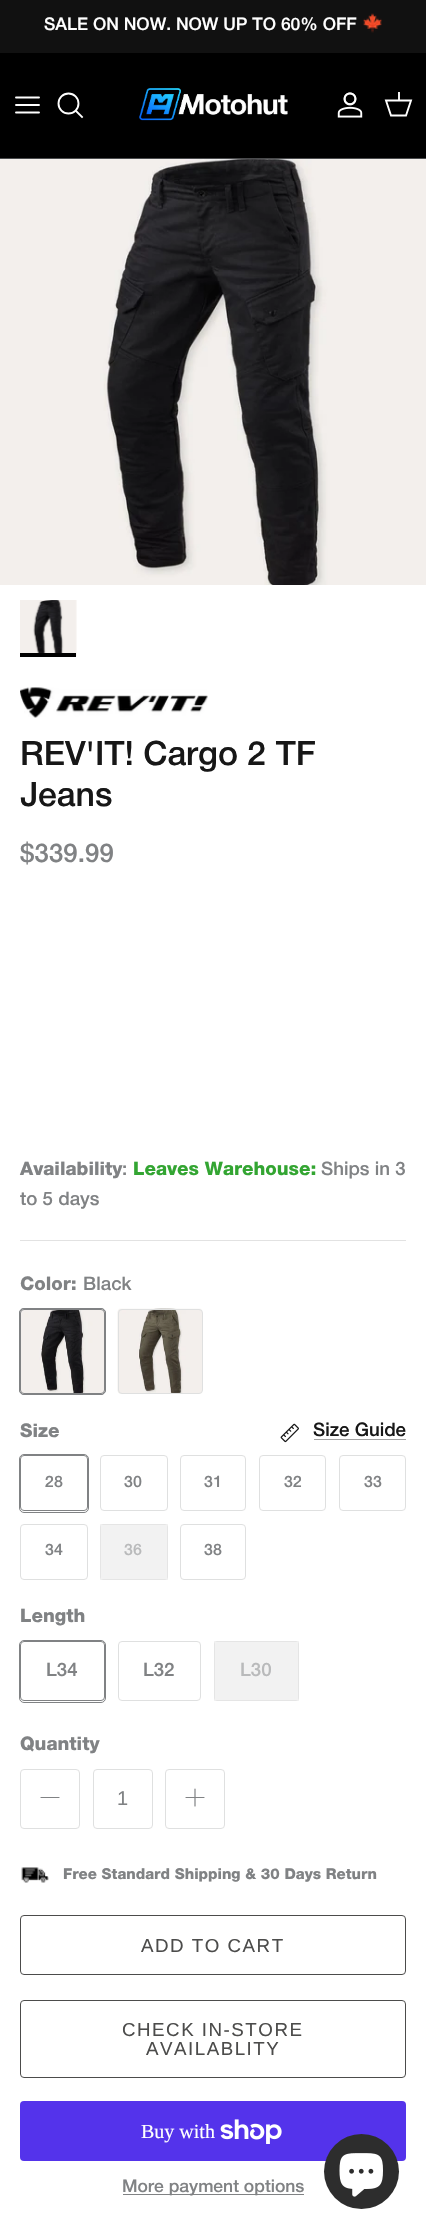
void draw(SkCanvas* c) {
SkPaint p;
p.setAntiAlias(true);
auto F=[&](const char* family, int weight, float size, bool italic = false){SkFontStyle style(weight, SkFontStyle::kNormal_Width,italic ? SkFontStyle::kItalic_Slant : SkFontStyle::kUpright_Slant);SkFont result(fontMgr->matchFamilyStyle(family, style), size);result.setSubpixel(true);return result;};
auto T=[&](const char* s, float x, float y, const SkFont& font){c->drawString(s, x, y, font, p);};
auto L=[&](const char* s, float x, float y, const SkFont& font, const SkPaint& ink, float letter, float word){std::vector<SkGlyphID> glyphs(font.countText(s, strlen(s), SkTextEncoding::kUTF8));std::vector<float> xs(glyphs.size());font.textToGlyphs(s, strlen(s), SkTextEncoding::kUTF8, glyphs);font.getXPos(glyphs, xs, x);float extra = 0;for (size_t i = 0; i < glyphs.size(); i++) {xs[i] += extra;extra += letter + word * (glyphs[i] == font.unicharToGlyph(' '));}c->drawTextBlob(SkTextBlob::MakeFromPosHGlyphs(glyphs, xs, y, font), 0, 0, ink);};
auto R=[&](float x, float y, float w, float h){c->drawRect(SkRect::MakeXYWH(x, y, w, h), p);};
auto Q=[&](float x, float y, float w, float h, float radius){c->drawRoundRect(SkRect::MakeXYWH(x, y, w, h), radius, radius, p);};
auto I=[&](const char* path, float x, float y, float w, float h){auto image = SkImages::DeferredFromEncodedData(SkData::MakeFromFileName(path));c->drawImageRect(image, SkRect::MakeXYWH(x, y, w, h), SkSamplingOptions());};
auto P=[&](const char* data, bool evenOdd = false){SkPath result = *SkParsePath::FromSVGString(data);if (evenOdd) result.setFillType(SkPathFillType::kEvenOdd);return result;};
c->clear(0xffffffff);
p.setColor(0xff111111);
R(0,0,426,53);
auto f1 = F("Helvetica Neue",500,17.5);
p.setColor(0xffffffff);
T("SALE ON NOW. NOW UP TO 60% OFF",44,30,f1);
I("1.png",363,13,19,20);
p.setColor(0xff000000);
R(0,53,426,105);
p.setColor(0xff4a4b4d);
R(0,158,426,1);
p.setStroke(true);
p.setStrokeWidth(1.9);
p.setStrokeCap(SkPaint::kRound_Cap);
p.setStrokeJoin(SkPaint::kRound_Join);
p.setColor(0xffffffff);
c->drawPath(P("M16 105h23m-23-7.5h23m-23 15h23"),p);
p.setStrokeCap(SkPaint::kButt_Cap);
p.setStrokeJoin(SkPaint::kMiter_Join);
c->drawCircle(68.5,103.5,10,p);
p.setStrokeCap(SkPaint::kSquare_Cap);
c->drawPath(P("M76 111l6 6"),p);
I("2.png",139,88,149,33);
I("3.png",337,92,26,26);
p.setStrokeCap(SkPaint::kButt_Cap);
c->drawPath(P("M386 100.5h25l-5 15h-15z"),p);
p.setStroke(false);
p.setColor(0xf2ffffff);
R(398,92,2,9);
I("4.png",0,159,426,426);
I("5.png",20,600,57,57);
p.setColor(0xff000000);
R(20,653,56,4);
I("6.png",20,687,188,31);
auto f2 = F("Helvetica Neue",500,33.75);
p.setColor(0xff171717);
T("REV'IT! Cargo 2 TF",20,765,f2);
T("Jeans",20,806,f2);
auto f3 = F("Helvetica Neue",500,26);
p.setColor(0xff808284);
T("$339.99",20,862,f3);
auto f4 = F("Helvetica Neue",900,18.75);
T("Availability",20,1175,f4);
auto f5 = F("Helvetica Neue",500,18.75);
T(":",122,1175,f5);
p.setColor(0xff33a532);
T("Leaves Warehouse:",133,1175,f4);
p.setColor(0xff808284);
T("Ships in 3",321,1175,f5);
T("to 5 days",20,1205,f5);
p.setColor(0xffe2e2e2);
R(20,1240,386,1);
p.setColor(0xff808284);
T("Color:",20,1290,f4);
T("Black",83,1290,f5);
p.setStroke(true);
p.setStrokeWidth(1);
c->drawRoundRect(SkRect::MakeXYWH(19.5,1308.5,86,86),4.5,4.5,p);
I("8.png",20,1308,85,86);
c->drawRoundRect(SkRect::MakeXYWH(19.5,1308.5,86,86),4.5,4.5,p);
I("7.png",20,1308,3,4);
c->drawRoundRect(SkRect::MakeXYWH(20.5,1309.5,84,84),3.5,3.5,p);
I("9.png",117,1308,86,86);
p.setColor(0xffdfe0e0);
c->drawRoundRect(SkRect::MakeXYWH(118.5,1309.5,84,84),3.5,3.5,p);
p.setStroke(false);
p.setColor(0xff808284);
T("Size",20,1437,f4);
I("10.png",280,1423,19,20);
p.setColor(0xff171717);
T("Size Guide",313,1436,f5);
p.setColor(0xffa2a2a2);
R(314,1439,92,1);
p.setStroke(true);
p.setColor(0xff808284);
c->drawRoundRect(SkRect::MakeXYWH(19.5,1454.5,69,58),4.5,4.5,p);
c->drawRoundRect(SkRect::MakeXYWH(20.5,1455.5,67,55),3.5,3.5,p);
auto f6 = F("Helvetica Neue",500,16);
p.setStroke(false);
T("28",45,1487,f6);
p.setStroke(true);
p.setColor(0xffdfe0e0);
c->drawRoundRect(SkRect::MakeXYWH(100.5,1455.5,67,55),3.5,3.5,p);
p.setStroke(false);
p.setColor(0xff808284);
T("30",124,1487,f6);
p.setStroke(true);
p.setColor(0xffdfe0e0);
c->drawRoundRect(SkRect::MakeXYWH(180.5,1455.5,65,55),3.5,3.5,p);
p.setStroke(false);
p.setColor(0xff808284);
T("31",204,1487,f6);
p.setStroke(true);
p.setColor(0xffdfe0e0);
c->drawRoundRect(SkRect::MakeXYWH(259.5,1455.5,66,55),3.5,3.5,p);
p.setStroke(false);
p.setColor(0xff808284);
T("32",284,1487,f6);
p.setStroke(true);
p.setColor(0xffdfe0e0);
c->drawRoundRect(SkRect::MakeXYWH(339.5,1455.5,66,55),3.5,3.5,p);
p.setStroke(false);
p.setColor(0xff808284);
T("33",364,1487,f6);
p.setStroke(true);
p.setColor(0xffdfe0e0);
c->drawRoundRect(SkRect::MakeXYWH(20.5,1524.5,67,55),3.5,3.5,p);
p.setStroke(false);
p.setColor(0xff808284);
T("34",45,1555,f6);
p.setColor(0xfff2f2f2);
Q(100,1524,68,56,4);
p.setStroke(true);
p.setColor(0x0d000000);
c->drawRect(SkRect::MakeXYWH(100.5,1524.5,67,55),p);
p.setStroke(false);
p.setColor(0xffb9babb);
T("36",124,1555,f6);
p.setStroke(true);
p.setColor(0xffdfe0e0);
c->drawRoundRect(SkRect::MakeXYWH(180.5,1524.5,65,55),3.5,3.5,p);
p.setStroke(false);
p.setColor(0xff808284);
T("38",204,1555,f6);
T("Length",20,1622,f4);
p.setStroke(true);
c->drawRoundRect(SkRect::MakeXYWH(19.5,1640.5,86,62),4.5,4.5,p);
c->drawRoundRect(SkRect::MakeXYWH(20.5,1641.5,84,59),3.5,3.5,p);
p.setStroke(false);
T("L34",46,1676,f5);
p.setStroke(true);
p.setColor(0xffdfe0e0);
c->drawRoundRect(SkRect::MakeXYWH(118.5,1641.5,82,59),3.5,3.5,p);
p.setStroke(false);
p.setColor(0xff808284);
T("L32",143,1676,f5);
p.setColor(0xfff2f2f2);
Q(214,1641,85,60,4);
p.setStroke(true);
p.setColor(0x0d000000);
c->drawRect(SkRect::MakeXYWH(214.5,1641.5,84,59),p);
p.setStroke(false);
p.setColor(0xffb9babb);
T("L30",240,1676,f5);
p.setColor(0xff808284);
T("Quantity",20,1750,f4);
p.setStroke(true);
p.setColor(0xffdfe0e0);
c->drawRoundRect(SkRect::MakeXYWH(20.5,1769.5,59,59),3.5,3.5,p);
p.setStrokeWidth(1.2);
p.setStrokeCap(SkPaint::kRound_Cap);
p.setStrokeJoin(SkPaint::kRound_Join);
p.setColor(0xff808284);
c->drawPath(P("M41 1797.5h18"),p);
p.setStrokeWidth(1);
p.setStrokeCap(SkPaint::kButt_Cap);
p.setStrokeJoin(SkPaint::kMiter_Join);
p.setColor(0xffdfe0e0);
c->drawRoundRect(SkRect::MakeXYWH(93.5,1769.5,59,59),3.5,3.5,p);
auto f7 = F("Arimo",400,20);
p.setStroke(false);
p.setColor(0xff808284);
T("1",117,1805,f7);
p.setStroke(true);
p.setColor(0xffdfe0e0);
c->drawRoundRect(SkRect::MakeXYWH(165.5,1769.5,59,59),3.5,3.5,p);
p.setStrokeWidth(1.2);
p.setStrokeCap(SkPaint::kRound_Cap);
p.setStrokeJoin(SkPaint::kRound_Join);
p.setColor(0xff808284);
c->drawPath(P("M195 1789v17m-9-8.5h18"),p);
I("11.png",21,1867,28,16);
auto f8 = F("Helvetica Neue",900,15);
p.setStroke(false);
T("Free Standard Shipping & 30 Days Return",63,1879,f8);
p.setStroke(true);
p.setStrokeWidth(1);
p.setStrokeCap(SkPaint::kButt_Cap);
p.setStrokeJoin(SkPaint::kMiter_Join);
p.setColor(0xff4c4c4b);
c->drawRoundRect(SkRect::MakeXYWH(20.5,1915.5,385,59),3.5,3.5,p);
auto f9 = F("Arimo",400,18.75);
p.setStroke(false);
L("ADD TO CART",141,1952,f9,p,1.5,0);
p.setStroke(true);
c->drawRoundRect(SkRect::MakeXYWH(20.5,2000.5,385,77),3.5,3.5,p);
p.setStroke(false);
L("CHECK IN-STORE",122,2036,f9,p,1.5,0);
L("AVAILABLITY",146,2055,f9,p,1.5,0);
p.setColor(0xff5433eb);
Q(20,2101,386,60,4);
auto f10 = F("Liberation Serif",400,20);
p.setColor(0xffffffff);
T("Buy with",141,2138,f10);
I("12.png",220,2119,62,25);
p.setColor(0xff808284);
R(123,2194,181,1);
T("More payment options",122,2192,f1);
p.setColor(0xff2d2d2d);
c->drawCircle(361.5,2171.5,37.5,p);
I("13.png",339,2153,44,44);
}
